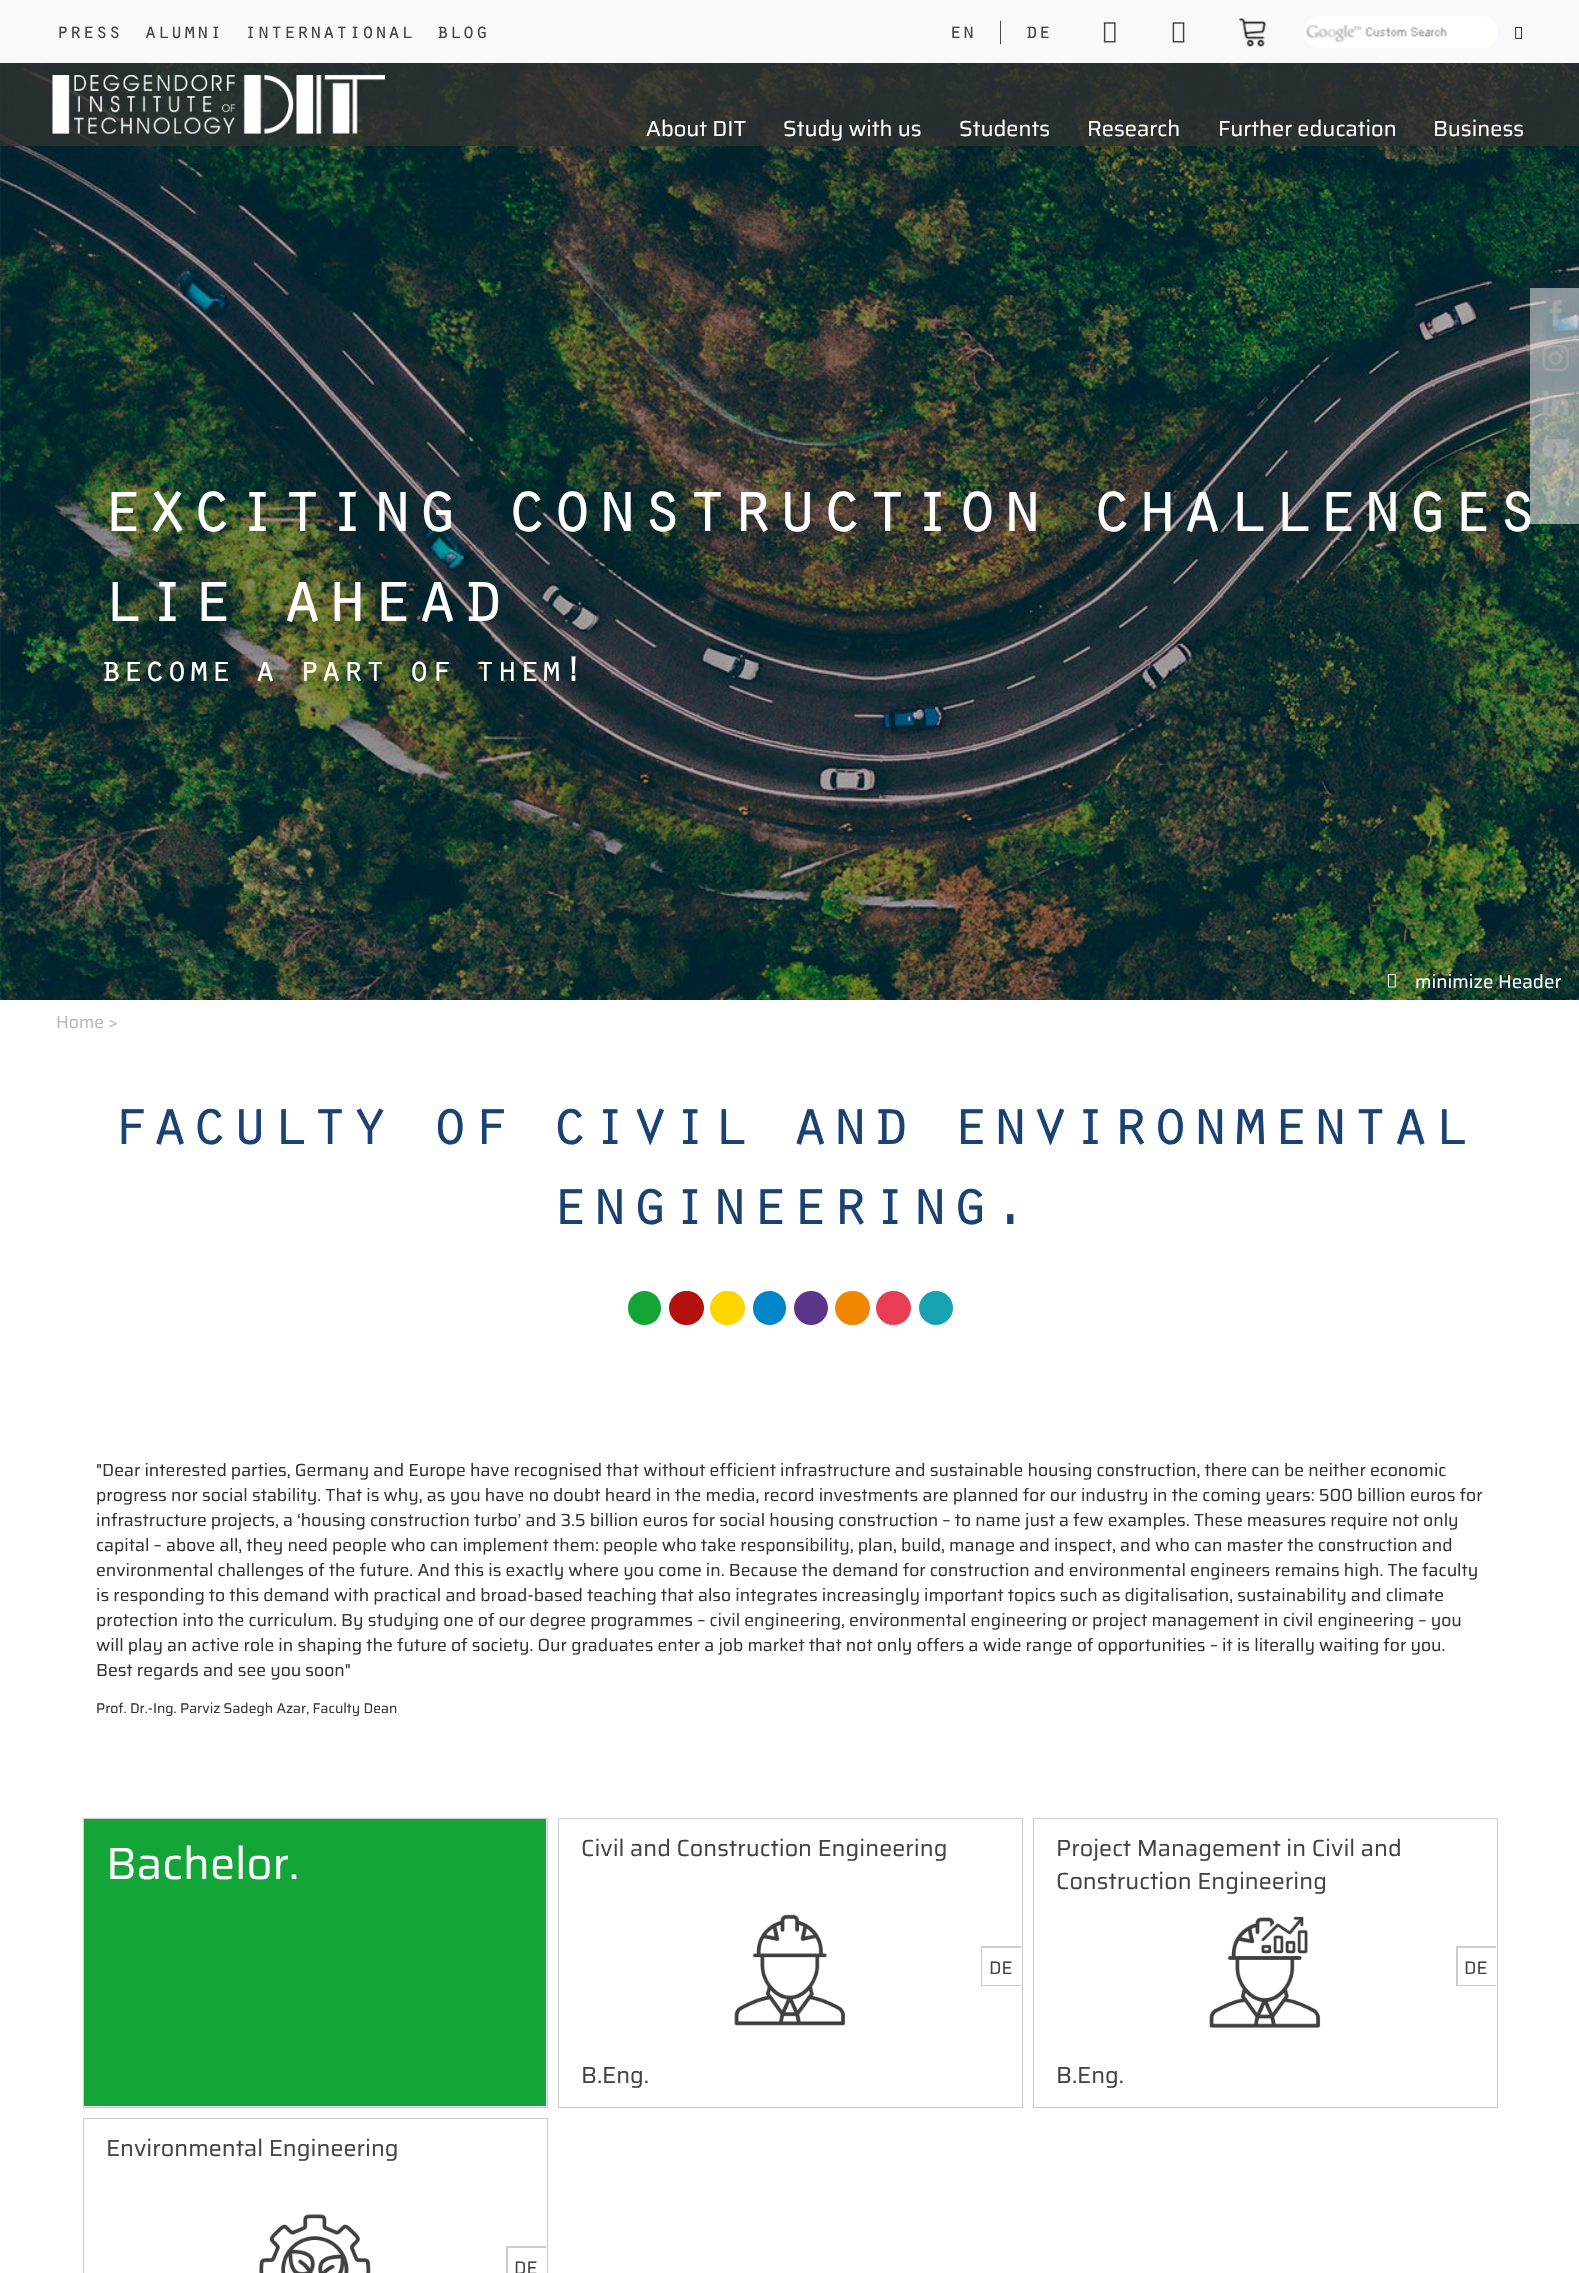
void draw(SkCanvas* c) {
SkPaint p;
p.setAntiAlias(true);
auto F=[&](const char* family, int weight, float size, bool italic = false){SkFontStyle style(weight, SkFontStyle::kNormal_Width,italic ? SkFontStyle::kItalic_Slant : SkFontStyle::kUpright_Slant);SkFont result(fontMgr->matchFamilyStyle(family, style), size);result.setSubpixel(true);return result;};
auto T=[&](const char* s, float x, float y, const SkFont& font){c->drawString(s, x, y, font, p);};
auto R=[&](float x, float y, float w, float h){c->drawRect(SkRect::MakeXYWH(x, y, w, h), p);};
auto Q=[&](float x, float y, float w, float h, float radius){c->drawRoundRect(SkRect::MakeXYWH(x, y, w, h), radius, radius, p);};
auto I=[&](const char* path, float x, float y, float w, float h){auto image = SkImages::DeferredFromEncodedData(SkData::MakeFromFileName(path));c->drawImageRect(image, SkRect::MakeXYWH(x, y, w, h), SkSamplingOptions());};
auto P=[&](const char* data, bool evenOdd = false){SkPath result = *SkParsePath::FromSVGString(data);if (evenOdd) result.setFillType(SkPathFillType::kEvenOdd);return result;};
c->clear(0xffffffff);
p.setColor(0xfff8f9fa);
R(0,0,1579,63);
auto f1 = F("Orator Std",400,21.75);
p.setColor(0xff434343);
T("press",56,38,f1);
T("alumni",144,38,f1);
T("international",244,38,f1);
T("blog",436,38,f1);
T("en",949,38,f1);
T("|",994,38,f1);
T("de",1025,38,f1);
I("1.png",1103,22,13,21);
I("2.png",1172,22,13,21);
I("3.png",1239,18,27,29);
p.setColor(0xffffffff);
Q(1304,16,194,32,16);
I("4.png",1305,24,142,19);
I("5.png",1515,27,7,12);
I("7.png",0,63,1579,937);
p.setColor(0xcc2f2f2f);
R(0,63,1579,83);
I("6.png",52,75,333,59);
auto f2 = F("Saira",400,21.75);
p.setColor(0xffffffff);
T("About DIT",646,136,f2);
T("Study with us",783,136,f2);
T("Students",959,136,f2);
T("Research",1087,136,f2);
T("Further education",1218,136,f2);
T("Business",1433,136,f2);
auto f3 = F("Orator Std",400,75);
T("exciting construction challenges",100,531,f3);
T("lie ahead",100,621,f3);
auto f4 = F("Orator Std",400,36.7);
T("become a part of them!",100,681,f4);
I("8.png",1388,974,8,14);
auto f5 = F("Saira",400,18.75);
T("minimize Header",1415,988,f5);
auto f6 = F("Saira",400,17.5);
p.setColor(0xffb7b7b7);
T("Home >",56,1028,f6);
auto f7 = F("Orator Std",400,66.7);
p.setColor(0xff1a4273);
T("faculty of civil and environmental",110,1144,f7);
T("engineering.",550,1224,f7);
p.setColor(0xff13a538);
Q(628,1291,33,34,16.5);
p.setColor(0xffb2110e);
Q(669,1291,35,34,17);
p.setColor(0xffffd500);
Q(710,1291,35,34,17);
p.setColor(0xff0085c8);
Q(753,1291,33,34,16.5);
p.setColor(0xff59358c);
c->drawCircle(811,1308,17,p);
p.setColor(0xfff18700);
Q(835,1291,35,34,17);
p.setColor(0xffe73d55);
Q(876,1291,35,34,17);
p.setColor(0xff17a2b0);
c->drawCircle(936,1308,17,p);
p.setColor(0x80ffffff);
R(1530,288,49,236);
I("9.png",1549,300,13,27);
I("10.png",1542,345,27,27);
I("11.png",1542,390,27,26);
I("12.png",1542,439,27,19);
I("13.png",1545,481,21,26);
p.setColor(0xff333333);
T("\"Dear interested parties, Germany and Europe have recognised that without efficient infrastructure and sustainable housing construction, there can be neither economic",96,1476,f6);
T("progress nor social stability. That is why, as you have no doubt heard in the media, record investments are planned for our industry in the coming years: 500 billion euros for",96,1501,f6);
T("infrastructure projects, a ‘housing construction turbo’ and 3.5 billion euros for social housing construction – to name just a few examples. These measures require not only",96,1526,f6);
T("capital – above all, they need people who can implement them: people who take responsibility, plan, build, manage and inspect, and who can master the construction and",96,1551,f6);
T("environmental challenges of the future. And this is exactly where you come in. Because the demand for construction and environmental engineers remains high. The faculty",96,1576,f6);
T("is responding to this demand with practical and broad-based teaching that also integrates increasingly important topics such as digitalisation, sustainability and climate",96,1601,f6);
T("protection into the curriculum. By studying one of our degree programmes – civil engineering, environmental engineering or project management in civil engineering – you",96,1626,f6);
T("will play an active role in shaping the future of society. Our graduates enter a job market that not only offers a wide range of opportunities – it is literally waiting for you.",96,1651,f6);
T("Best regards and see you soon\"",96,1676,f6);
auto f8 = F("Saira",400,14);
T("Prof. Dr.-Ing. Parviz Sadegh Azar, Faculty Dean",96,1713,f8);
p.setStroke(true);
p.setStrokeWidth(1);
p.setColor(0xffcccccc);
c->drawRect(SkRect::MakeXYWH(83.5,1818.5,464,289),p);
p.setStroke(false);
p.setColor(0xff13a538);
R(84,1819,462,287);
auto f9 = F("Saira",400,45);
p.setColor(0xffffffff);
T("Bachelor.",106,1879,f9);
p.setStroke(true);
p.setColor(0xffcccccc);
c->drawRect(SkRect::MakeXYWH(558.5,1818.5,464,289),p);
auto f10 = F("Saira",400,23.3);
p.setStroke(false);
p.setColor(0xff434343);
T("Civil and Construction Engineering",581,1856,f10);
I("14.png",734,1914,112,112);
T("B.Eng.",581,2083,f10);
p.setColor(0xffcccccc);
c->drawPath(P("M981 1946h40v2h-39zm40 40h-40l1-1h39z"),p);
p.setColor(0x33000000);
c->drawPath(P("M981 1986v-40l1 2v37z"),p);
auto f11 = F("Saira",400,18);
p.setColor(0xff434343);
T("DE",989,1974,f11);
p.setStroke(true);
p.setColor(0xffcccccc);
c->drawRect(SkRect::MakeXYWH(1033.5,1818.5,464,289),p);
p.setStroke(false);
p.setColor(0xff434343);
T("Project Management in Civil and",1056,1856,f10);
T("Construction Engineering",1056,1889,f10);
I("15.png",1209,1916,112,112);
T("B.Eng.",1056,2083,f10);
p.setColor(0xffcccccc);
c->drawPath(P("M1456 1946h40v2h-38zm40 40h-40l2-1h38z"),p);
p.setColor(0x33000000);
c->drawPath(P("M1456 1986v-40l2 2v37z"),p);
p.setColor(0xff434343);
T("DE",1464,1974,f11);
p.setStroke(true);
p.setColor(0xffcccccc);
c->drawRect(SkRect::MakeXYWH(83.5,2118.5,464,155),p);
p.setStroke(false);
p.setColor(0xff434343);
T("Environmental Engineering",106,2156,f10);
I("16.png",259,2214,112,59);
p.setColor(0xffcccccc);
c->drawPath(P("M506 2246h40v2h-38z"),p);
p.setColor(0x33000000);
c->drawPath(P("M506 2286v-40l2 2v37z"),p);
p.setColor(0xff434343);
T("DE",514,2274,f11);
}
